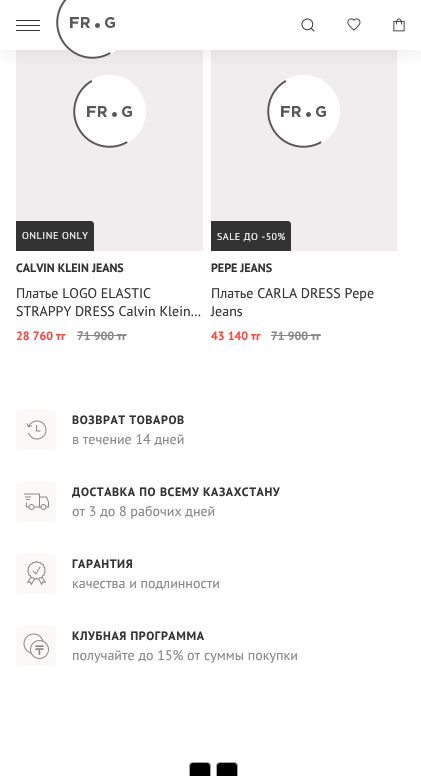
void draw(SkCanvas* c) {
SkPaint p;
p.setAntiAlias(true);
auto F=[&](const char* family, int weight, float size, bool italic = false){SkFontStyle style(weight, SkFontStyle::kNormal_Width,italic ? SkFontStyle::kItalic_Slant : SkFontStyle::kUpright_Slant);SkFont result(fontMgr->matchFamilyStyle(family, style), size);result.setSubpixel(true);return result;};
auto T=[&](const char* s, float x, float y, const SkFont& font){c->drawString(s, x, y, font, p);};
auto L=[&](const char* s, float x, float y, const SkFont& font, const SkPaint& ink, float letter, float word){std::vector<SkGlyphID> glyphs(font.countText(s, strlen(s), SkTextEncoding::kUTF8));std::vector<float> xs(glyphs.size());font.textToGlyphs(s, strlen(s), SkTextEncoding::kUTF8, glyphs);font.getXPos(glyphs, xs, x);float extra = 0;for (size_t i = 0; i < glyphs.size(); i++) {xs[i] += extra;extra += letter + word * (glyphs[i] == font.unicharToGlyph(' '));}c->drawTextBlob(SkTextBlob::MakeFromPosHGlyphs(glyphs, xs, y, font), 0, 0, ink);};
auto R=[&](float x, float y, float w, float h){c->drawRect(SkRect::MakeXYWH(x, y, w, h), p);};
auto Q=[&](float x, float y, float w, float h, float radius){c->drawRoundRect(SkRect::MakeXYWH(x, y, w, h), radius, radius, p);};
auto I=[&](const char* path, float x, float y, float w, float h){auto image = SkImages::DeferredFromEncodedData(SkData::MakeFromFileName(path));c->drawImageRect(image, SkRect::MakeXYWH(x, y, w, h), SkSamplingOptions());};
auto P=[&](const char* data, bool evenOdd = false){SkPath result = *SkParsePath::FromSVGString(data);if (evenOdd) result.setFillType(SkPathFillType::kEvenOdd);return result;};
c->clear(0xffffffff);
p.setColor(0xffefeded);
R(16,50,187,201);
I("5.png",73,75,73,73);
R(211,50,186,201);
I("5.png",267,75,73,73);
p.setColor(0x1a323232);
p.setMaskFilter(SkMaskFilter::MakeBlur(kNormal_SkBlurStyle, 10));
c->drawRect(SkRect::MakeXYWH(0,2,421,50),p);
p.setMaskFilter(nullptr);
p.setColor(0xffffffff);
R(0,0,421,50);
p.setColor(0xff333333);
R(16,20,24,1);
R(16,25,24,1);
R(16,30,24,1);
I("1.png",56,0,60,59);
I("2.png",301,18,14,14);
I("3.png",347,18,14,13);
I("4.png",393,18,12,14);
c->drawPath(P("M16 221h75c1.5 0 3 1.5 3 3v27h-78z"),p);
auto f1 = F("PT Sans",400,10);
p.setColor(0xffffffff);
L("ONLINE ONLY",22,239,f1,p,.5,0);
auto f2 = F("PT Sans",700,12);
p.setColor(0xff333333);
T("CALVIN KLEIN JEANS",16,272,f2);
auto f3 = F("PT Sans",400,14);
T("Платье LOGO ELASTIC",16,298,f3);
T("STRAPPY DRESS Calvin Klein…",16,316,f3);
p.setColor(0xfff94942);
T("28 760 тг",16,340,f2);
p.setColor(0xff898686);
T("71 900 тг",77,340,f2);
R(77,335,49,1);
p.setColor(0xff333333);
c->drawPath(P("M211 221h77c1.5 0 3 1.5 3 3v27h-80z"),p);
p.setColor(0xffffffff);
L("SALE ДО -50%",217,240,f1,p,.5,0);
p.setColor(0xff333333);
T("PEPE JEANS",211,272,f2);
T("Платье CARLA DRESS Pepe",211,298,f3);
T("Jeans",211,316,f3);
p.setColor(0xfff94942);
T("43 140 тг",211,340,f2);
p.setColor(0xff898686);
T("71 900 тг",271,340,f2);
R(271,335,50,1);
p.setColor(0xfffbf8f8);
Q(16,410,40,40,3);
I("6.png",26,420,21,20);
p.setColor(0xff333333);
L("ВОЗВРАТ ТОВАРОВ",72,424,f2,p,.6,0);
p.setColor(0xff898686);
T("в течение 14 дней",72,444,f3);
p.setColor(0xfffbf8f8);
Q(16,482,40,40,3);
I("7.png",24,493,25,17);
p.setColor(0xff333333);
L("ДОСТАВКА ПО ВСЕМУ КАЗАХСТАНУ",72,496,f2,p,.6,0);
p.setColor(0xff898686);
T("от 3 до 8 рабочих дней",72,516,f3);
p.setColor(0xfffbf8f8);
Q(16,554,40,40,3);
I("8.png",27,561,19,25);
p.setColor(0xff333333);
L("ГАРАНТИЯ",72,568,f2,p,.6,0);
p.setColor(0xff898686);
T("качества и подлинности",72,588,f3);
p.setColor(0xfffbf8f8);
Q(16,626,40,40,3);
I("9.png",23,633,26,26);
p.setColor(0xff333333);
L("КЛУБНАЯ ПРОГРАММА",72,640,f2,p,.6,0);
p.setColor(0xff898686);
T("получайте до 15% от суммы покупки",72,660,f3);
p.setColor(0xff000000);
c->drawRoundRect(SkRect::MakeXYWH(189.5,762.5,21,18),3.5,3.5,p);
p.setStroke(true);
p.setStrokeWidth(1);
p.setColor(0xffa6a6a6);
c->drawRoundRect(SkRect::MakeXYWH(189.5,762.5,21,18),3.5,3.5,p);
p.setStroke(false);
p.setColor(0xff000000);
c->drawRoundRect(SkRect::MakeXYWH(216.5,762.5,21,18),3.5,3.5,p);
p.setStroke(true);
p.setColor(0xffa6a6a6);
c->drawRoundRect(SkRect::MakeXYWH(216.5,762.5,21,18),3.5,3.5,p);
}
